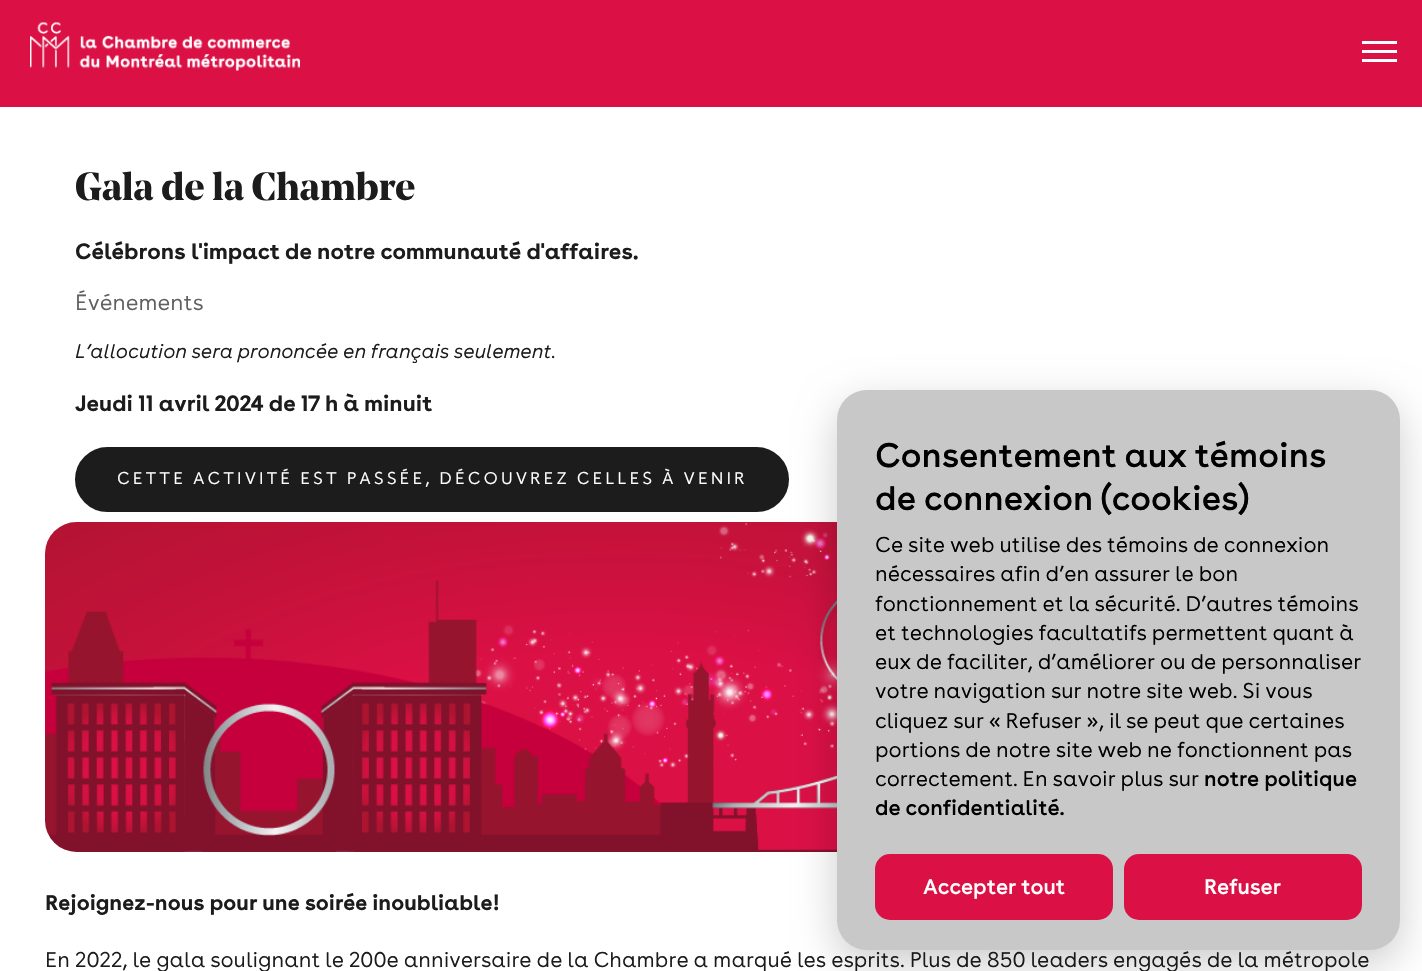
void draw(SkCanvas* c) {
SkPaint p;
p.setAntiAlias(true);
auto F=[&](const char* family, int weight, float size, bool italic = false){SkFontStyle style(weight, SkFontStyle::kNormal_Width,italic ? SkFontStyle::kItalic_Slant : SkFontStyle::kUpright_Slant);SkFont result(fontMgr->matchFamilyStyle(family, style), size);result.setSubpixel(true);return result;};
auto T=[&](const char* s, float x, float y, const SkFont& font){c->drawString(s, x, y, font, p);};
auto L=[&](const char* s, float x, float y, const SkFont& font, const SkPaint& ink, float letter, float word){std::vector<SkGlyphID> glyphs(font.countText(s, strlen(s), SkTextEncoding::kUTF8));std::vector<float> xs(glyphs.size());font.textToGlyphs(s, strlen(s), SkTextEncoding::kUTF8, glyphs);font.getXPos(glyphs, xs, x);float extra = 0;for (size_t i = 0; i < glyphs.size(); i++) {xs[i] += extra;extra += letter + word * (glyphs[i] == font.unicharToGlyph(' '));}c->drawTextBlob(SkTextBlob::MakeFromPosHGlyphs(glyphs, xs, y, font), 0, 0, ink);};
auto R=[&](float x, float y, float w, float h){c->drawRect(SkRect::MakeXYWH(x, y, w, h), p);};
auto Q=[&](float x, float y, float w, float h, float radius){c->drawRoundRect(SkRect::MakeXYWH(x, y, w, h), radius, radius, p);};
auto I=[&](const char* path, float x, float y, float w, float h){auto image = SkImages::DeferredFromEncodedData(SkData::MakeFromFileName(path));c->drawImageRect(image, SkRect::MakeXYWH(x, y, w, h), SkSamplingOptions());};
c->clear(0xffffffff);
p.setColor(0xffdb1045);
R(0,0,1422,107);
I("1.png",30,22,270,49);
p.setColor(0xffffffff);
R(1362,50,35,3);
R(1362,41,35,3);
R(1362,59,35,3);
auto f1 = F("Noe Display",700,39);
p.setColor(0xff1c1c1c);
T("Gala de la Chambre",75,200,f1);
auto f2 = F("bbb",700,23.4);
T("Célébrons l'impact de notre communauté d'affaires.",75,259,f2);
auto f3 = F("bbb",300,23.4);
p.setColor(0xff606060);
T("Événements",75,310,f3);
auto f4 = F("bbb",300,21,true);
p.setColor(0xff1c1c1c);
T("L’allocution sera prononcée en français seulement.",75,358,f4);
T("Jeudi 11 avril 2024 de 17 h à minuit",75,411,f2);
c->drawRoundRect(SkRect::MakeXYWH(76,448,712,63),31.5,31.5,p);
p.setStroke(true);
p.setStrokeWidth(2);
c->drawRoundRect(SkRect::MakeXYWH(76,448,712,63),31.5,31.5,p);
auto f5 = F("bbb",300,18);
p.setStroke(false);
p.setColor(0xffffffff);
L("CETTE ACTIVITÉ EST PASSÉE, DÉCOUVREZ CELLES À VENIR",117,484,f5,p,3,0);
I("2.png",45,522,792,330);
auto f6 = F("bbb",700,22.5);
p.setColor(0xff1c1c1c);
T("Rejoignez-nous pour une soirée inoubliable!",45,910,f6);
auto f7 = F("bbb",300,22.5);
T("En 2022, le gala soulignant le 200e anniversaire de la Chambre a marqué les esprits. Plus de 850 leaders engagés de la métropole",45,967,f7);
p.setColor(0x33020203);
p.setMaskFilter(SkMaskFilter::MakeBlur(kNormal_SkBlurStyle, 21));
c->drawRoundRect(SkRect::MakeXYWH(837,404,563,559),30,30,p);
p.setMaskFilter(nullptr);
p.setColor(0xffc8c8c8);
Q(837,390,563,560,30);
auto f8 = F("bbb",400,36);
p.setColor(0xff000000);
T("Consentement aux témoins",875,467,f8);
T("de connexion (cookies)",875,510,f8);
T("Ce site web utilise des témoins de connexion",875,552,f7);
T("nécessaires afin d’en assurer le bon",875,581,f7);
T("fonctionnement et la sécurité. D’autres témoins",875,611,f7);
T("et technologies facultatifs permettent quant à",875,640,f7);
T("eux de faciliter, d’améliorer ou de personnaliser",875,669,f7);
T("votre navigation sur notre site web. Si vous",875,698,f7);
T("cliquez sur « Refuser », il se peut que certaines",875,728,f7);
T("portions de notre site web ne fonctionnent pas",875,757,f7);
T("correctement. En savoir plus sur",875,786,f7);
auto f9 = F("bbb",400,22.5);
T("notre politique",1204,786,f9);
T("de confidentialité.",875,815,f9);
p.setColor(0xffdb1045);
Q(875,854,238,66,15);
p.setColor(0xffffffff);
T("Accepter tout",923,894,f9);
p.setColor(0xffdb1045);
Q(1124,854,238,66,15);
p.setColor(0xffffffff);
T("Refuser",1204,894,f9);
}
